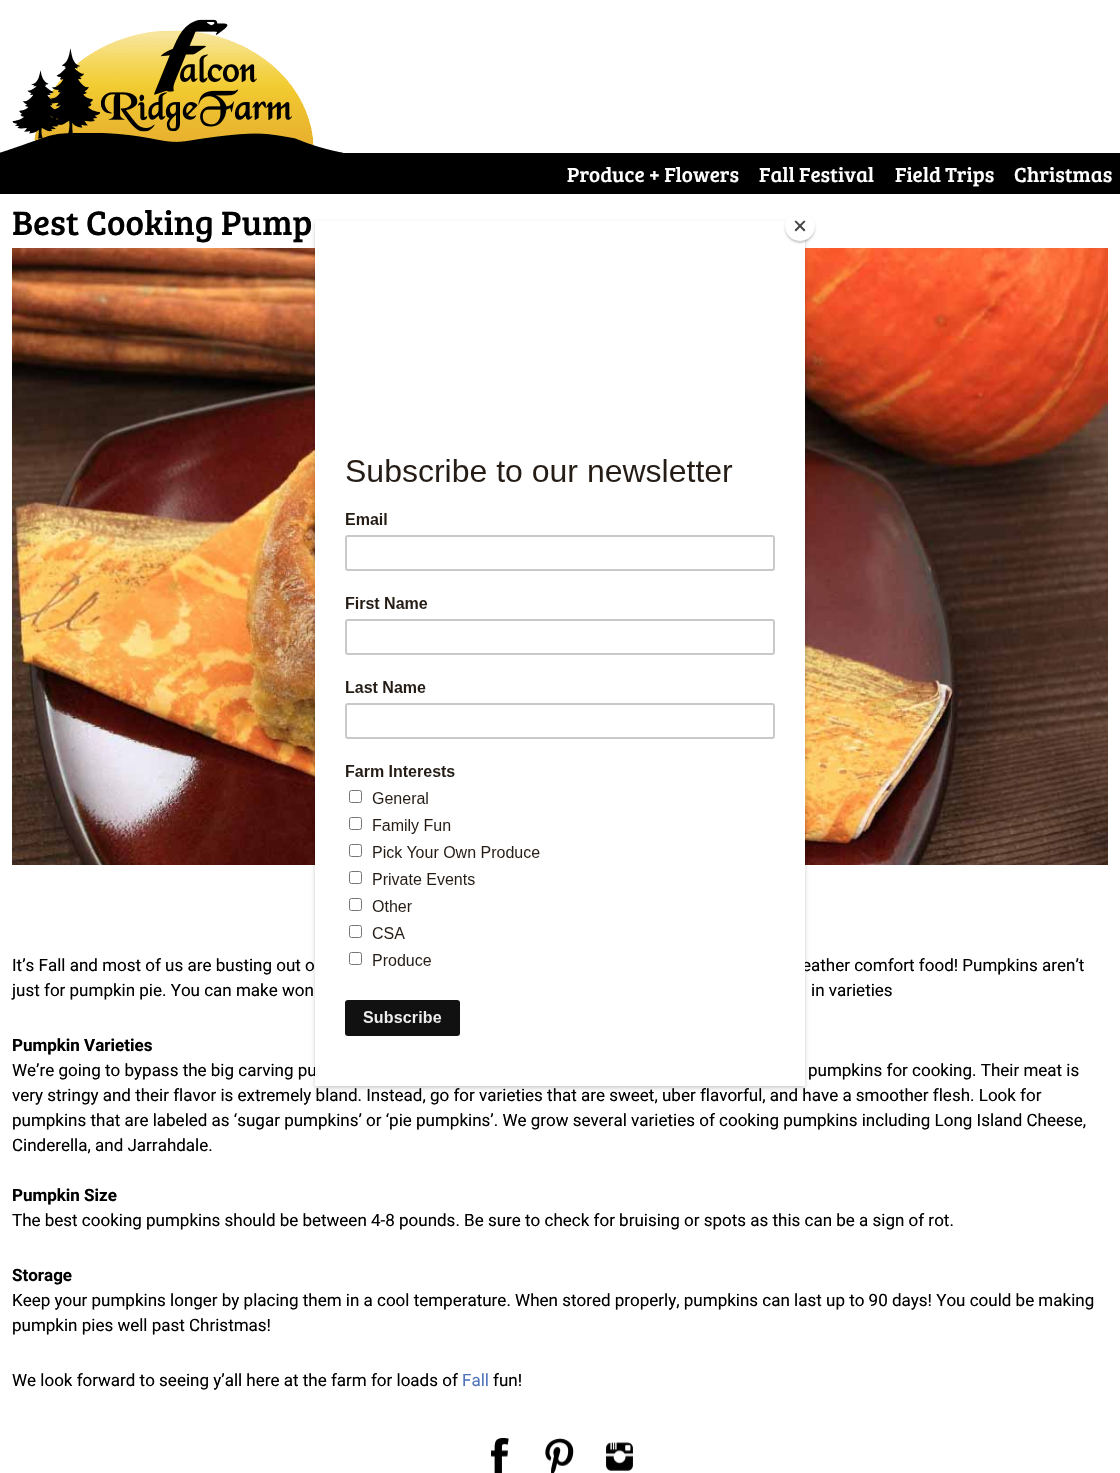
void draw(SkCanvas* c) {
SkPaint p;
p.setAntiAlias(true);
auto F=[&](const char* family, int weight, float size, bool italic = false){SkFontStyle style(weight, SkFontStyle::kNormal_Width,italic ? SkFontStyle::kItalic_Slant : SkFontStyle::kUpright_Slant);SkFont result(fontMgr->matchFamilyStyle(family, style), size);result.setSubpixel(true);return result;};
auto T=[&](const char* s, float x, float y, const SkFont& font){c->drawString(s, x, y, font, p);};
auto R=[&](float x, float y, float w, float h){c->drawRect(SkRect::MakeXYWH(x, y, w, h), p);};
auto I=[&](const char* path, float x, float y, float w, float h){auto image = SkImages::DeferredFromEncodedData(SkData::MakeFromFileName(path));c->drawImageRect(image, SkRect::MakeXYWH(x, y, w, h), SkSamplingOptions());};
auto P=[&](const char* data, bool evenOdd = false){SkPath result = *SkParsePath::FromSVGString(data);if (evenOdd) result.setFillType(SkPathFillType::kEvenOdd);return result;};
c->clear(0xffffffff);
I("1.png",0,19,343,134);
p.setColor(0xff000000);
R(0,153,1120,41);
auto f1 = F("Bree Serif",400,21);
p.setColor(0xffffffff);
T("Produce + Flowers",567,182,f1);
T("Fall Festival",759,182,f1);
T("Field Trips",895,182,f1);
T("Christmas",1014,182,f1);
auto f2 = F("Bree Serif",400,35);
p.setColor(0xff000000);
T("Best Cooking Pump",12,235,f2);
I("2.png",12,248,1096,617);
auto f3 = F("Roboto",400,17);
T("It’s Fall and most of us are busting out o",12,971,f3);
T("eather comfort food! Pumpkins aren’t",802,971,f3);
T("just for pumpkin pie. You can make won",12,996,f3);
T("in varieties",811,996,f3);
auto f4 = F("Roboto",700,17);
T("Pumpkin Varieties",12,1051,f4);
T("We’re going to bypass the big carving pu",12,1076,f3);
T("pumpkins for cooking. Their meat is",808,1076,f3);
T("very stringy and their flavor is extremely bland. Instead, go for varieties that are sweet, uber flavorful, and have a smoother flesh. Look for",12,1101,f3);
T("pumpkins that are labeled as ‘sugar pumpkins’ or ‘pie pumpkins’. We grow several varieties of cooking pumpkins including Long Island Cheese,",12,1126,f3);
T("Cinderella, and Jarrahdale.",12,1151,f3);
T("Pumpkin Size",12,1201,f4);
T("The best cooking pumpkins should be between 4-8 pounds. Be sure to check for bruising or spots as this can be a sign of rot.",12,1226,f3);
T("Storage",12,1281,f4);
T("Keep your pumpkins longer by placing them in a cool temperature. When stored properly, pumpkins can last up to 90 days! You could be making",12,1306,f3);
T("pumpkin pies well past Christmas!",12,1331,f3);
T("We look forward to seeing y’all here at the farm for loads of",12,1386,f3);
p.setColor(0xff5075b8);
T("Fall",462,1386,f3);
p.setColor(0xff000000);
T("fun!",493,1386,f3);
I("3.png",491,1438,18,35);
I("4.png",545,1438,29,35);
I("5.png",606,1442,27,29);
c->save();
c->clipPath(P("M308 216h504v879h-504zm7 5h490v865h-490z",true),true);
p.setColor(0x33000000);
p.setMaskFilter(SkMaskFilter::MakeBlur(kNormal_SkBlurStyle, 2));
c->drawRect(SkRect::MakeXYWH(315,223,490,865),p);
p.setMaskFilter(nullptr);
c->restore();
I("6.png",315,221,490,859);
p.setMaskFilter(SkMaskFilter::MakeBlur(kNormal_SkBlurStyle, 1));
c->drawRoundRect(SkRect::MakeXYWH(785,213,30,30),15,15,p);
p.setMaskFilter(nullptr);
p.setColor(0xffffffff);
c->drawCircle(800,226,15,p);
p.setColor(0xff414141);
c->drawPath(P("M804 220.5l1.5 1l-9.5 10l-1.5-1.5z"),p);
c->drawPath(P("M794.5 221.5l1.5-1l9.5 9.5l-1.5 1.5z"),p);
}
